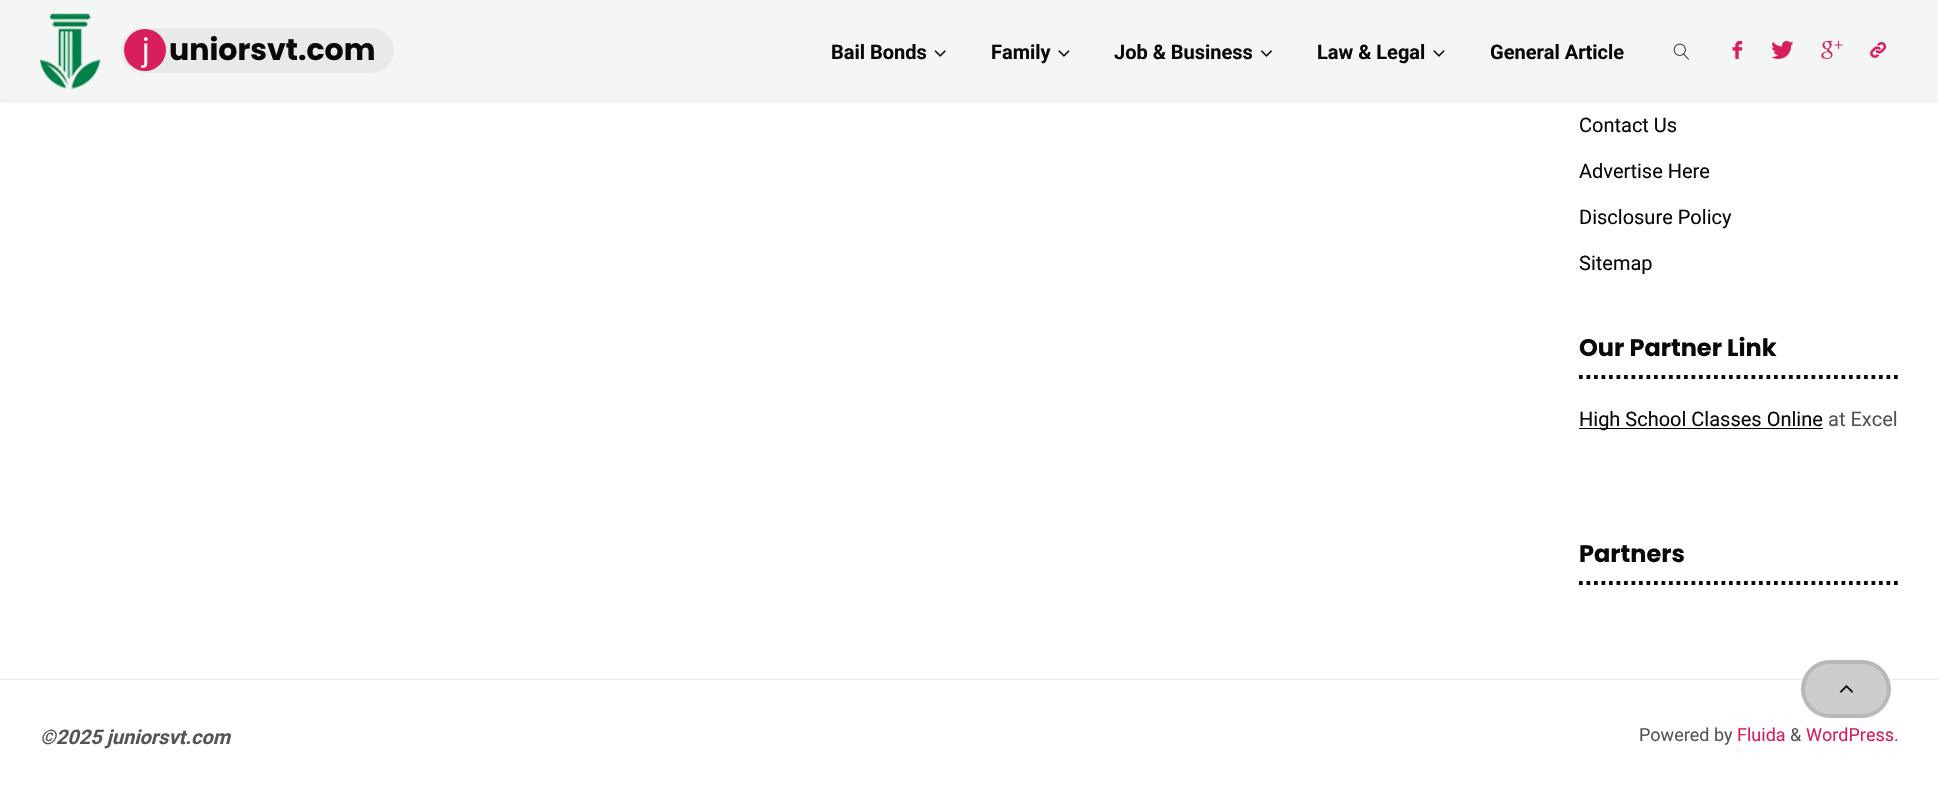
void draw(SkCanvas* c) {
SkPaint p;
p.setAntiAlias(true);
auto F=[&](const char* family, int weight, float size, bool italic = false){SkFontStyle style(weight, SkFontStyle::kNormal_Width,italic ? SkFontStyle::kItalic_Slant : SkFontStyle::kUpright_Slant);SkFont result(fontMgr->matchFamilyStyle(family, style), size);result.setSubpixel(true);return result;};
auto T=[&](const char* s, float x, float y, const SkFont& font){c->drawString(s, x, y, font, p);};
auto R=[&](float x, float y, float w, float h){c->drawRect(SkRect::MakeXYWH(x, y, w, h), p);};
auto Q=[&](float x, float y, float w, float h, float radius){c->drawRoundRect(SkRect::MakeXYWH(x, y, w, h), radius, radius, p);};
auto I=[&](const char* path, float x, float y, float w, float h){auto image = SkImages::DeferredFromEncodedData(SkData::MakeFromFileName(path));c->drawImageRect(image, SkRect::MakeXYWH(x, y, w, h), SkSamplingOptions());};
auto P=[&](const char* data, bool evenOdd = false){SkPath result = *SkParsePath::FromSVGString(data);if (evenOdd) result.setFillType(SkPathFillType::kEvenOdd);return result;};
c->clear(0xffffffff);
p.setColor(0x33000000);
p.setMaskFilter(SkMaskFilter::MakeBlur(kNormal_SkBlurStyle, 2));
c->drawRect(SkRect::MakeXYWH(0,0,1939,100),p);
p.setMaskFilter(nullptr);
p.setColor(0xfff4f6f5);
R(0,0,1938,100);
I("1.png",39,13,63,76);
p.setColor(0xffe8eae9);
Q(121,28,273,45,22.5);
p.setColor(0xffd81e5b);
c->drawCircle(145,50,21,p);
auto f1 = F("Poppins",400,30);
p.setColor(0xfff4f6f5);
T("j",142,60,f1);
auto f2 = F("Poppins",700,30);
p.setColor(0xff0a0908);
T("uniorsvt.com",169,60,f2);
auto f3 = F("Roboto",700,20);
T("Bail Bonds",831,59,f3);
I("2.png",934,50,12,7);
T("Family",991,59,f3);
I("3.png",1058,50,12,7);
T("Job & Business",1114,59,f3);
I("4.png",1260,50,12,7);
T("Law & Legal",1317,59,f3);
I("3.png",1433,50,12,7);
T("General Article",1490,59,f3);
I("5.png",1673,43,16,17);
I("6.png",1732,40,11,19);
I("7.png",1771,40,23,19);
I("8.png",1821,40,22,19);
I("9.png",1870,42,17,16);
auto f4 = F("Roboto",400,20);
T("Contact Us",1579,132,f4);
T("Advertise Here",1579,178,f4);
T("Disclosure Policy",1579,224,f4);
T("Sitemap",1579,270,f4);
p.setStroke(true);
p.setStrokeWidth(3.8);
p.setPathEffect(SkDashPathEffect::Make({{3.75f,3.75f}}, 0));
c->drawPath(P("M1579 377h320"),p);
p.setPathEffect(nullptr);
auto f5 = F("Poppins",700,24);
p.setStroke(false);
T("Our Partner Link",1579,356,f5);
R(1579,428,244,1);
T("High School Classes Online",1579,426,f4);
p.setColor(0xff555555);
T("at Excel",1828,426,f4);
p.setStroke(true);
p.setColor(0xff0a0908);
p.setPathEffect(SkDashPathEffect::Make({{3.75f,3.75f}}, 0));
c->drawPath(P("M1579 583h320"),p);
p.setPathEffect(nullptr);
p.setStroke(false);
T("Partners",1579,562,f5);
p.setColor(0xffebebeb);
R(0,679,1938,1);
p.setColor(0xccc1c1c1);
Q(1801,660,90,58,29);
p.setStroke(true);
p.setStrokeWidth(4);
p.setColor(0x1a000000);
c->drawRoundRect(SkRect::MakeXYWH(1803,662,86,54),27,27,p);
I("10.png",1839,685,15,8);
auto f6 = F("Roboto",700,20,true);
p.setStroke(false);
p.setColor(0xff555555);
T("©2025 juniorsvt.com",40,744,f6);
auto f7 = F("Roboto",400,18);
T("Powered by",1639,741,f7);
p.setColor(0xffd81e5b);
T("Fluida",1737,741,f7);
p.setColor(0xff555555);
T("&",1790,741,f7);
p.setColor(0xffd81e5b);
T("WordPress.",1806,741,f7);
}
